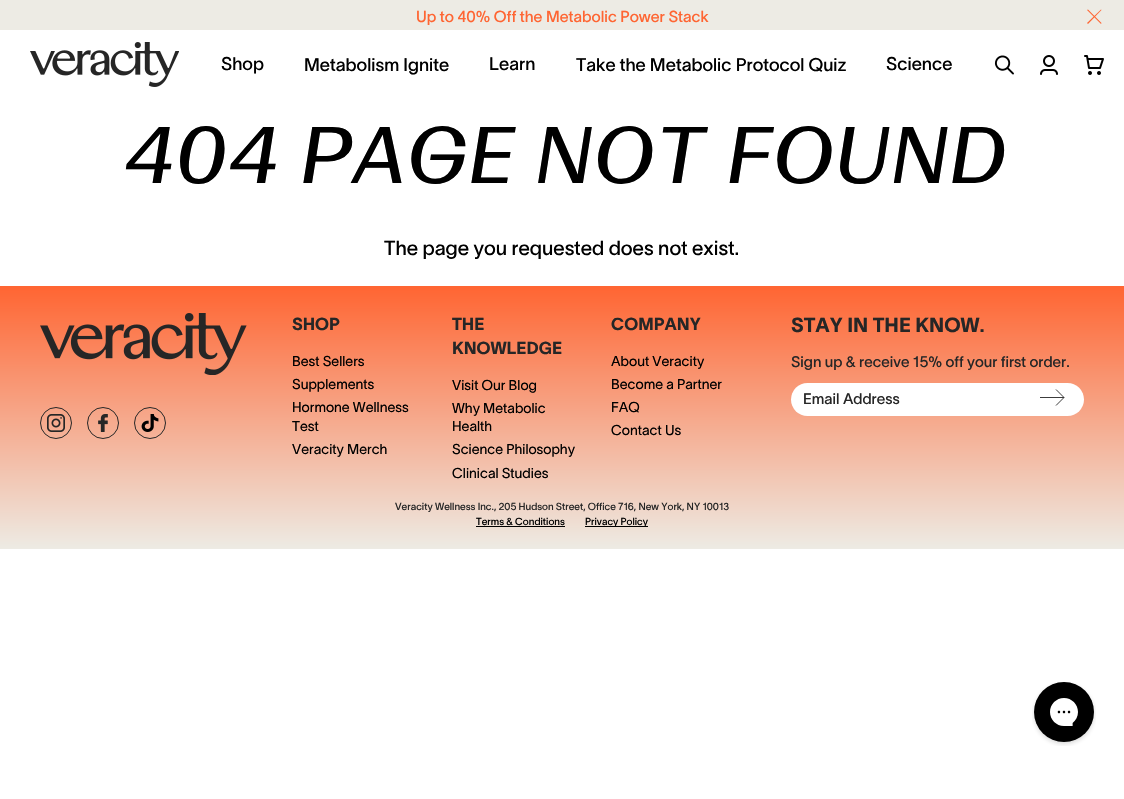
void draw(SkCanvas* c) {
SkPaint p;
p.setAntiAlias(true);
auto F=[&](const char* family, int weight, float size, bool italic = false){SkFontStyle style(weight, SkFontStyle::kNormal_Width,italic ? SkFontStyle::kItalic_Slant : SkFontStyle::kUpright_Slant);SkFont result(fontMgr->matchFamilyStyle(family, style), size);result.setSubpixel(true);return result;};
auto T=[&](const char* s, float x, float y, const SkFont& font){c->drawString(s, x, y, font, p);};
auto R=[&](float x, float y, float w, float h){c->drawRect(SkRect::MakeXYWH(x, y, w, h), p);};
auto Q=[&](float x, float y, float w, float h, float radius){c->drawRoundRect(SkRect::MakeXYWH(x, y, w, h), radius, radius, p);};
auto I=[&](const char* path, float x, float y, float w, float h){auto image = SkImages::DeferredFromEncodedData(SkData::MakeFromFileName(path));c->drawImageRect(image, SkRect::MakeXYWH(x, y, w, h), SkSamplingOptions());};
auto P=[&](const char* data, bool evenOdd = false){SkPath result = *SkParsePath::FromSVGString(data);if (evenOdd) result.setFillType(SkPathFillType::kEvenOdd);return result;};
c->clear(0xffffffff);
p.setColor(0xffedebe4);
R(0,0,1124,30);
auto f1 = F("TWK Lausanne",400,15.6);
p.setColor(0xffff6532);
T("Up to 40% Off the Metabolic Power Stack",416,22,f1);
c->drawPath(P("M1088 9.5l13.5 13.5l-.5 1l-14-14z"),p);
c->drawPath(P("M1087 23l14-13.5l.5 .5l-13.5 14z"),p);
I("1.png",30,42,149,45);
auto f2 = F("TWK Lausanne",400,18);
p.setColor(0xff000000);
T("Shop",221,70,f2);
T("Metabolism Ignite",304,71,f2);
T("Learn",489,70,f2);
T("Take the Metabolic Protocol Quiz",576,71,f2);
T("Science",886,70,f2);
I("2.png",994,55,20,20);
I("3.png",1040,55,18,20);
I("4.png",1084,55,20,20);
auto f3 = F("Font",400,80,true);
T("404 PAGE NOT FOUND",120,183,f3);
auto f4 = F("TWK Lausanne",400,20);
T("The page you requested does not exist.",384,255,f4);
{
const SkColor colors[] = {0xffff6532,0xffedebe4};
const float stops[] = {0,1};
const SkPoint ends[] = {{562,286}, {562,549}};
p.setShader(SkGradientShader::MakeLinear(ends, colors, stops, 2, SkTileMode::kClamp));
p.setAlpha(255);
}
R(0,286,1124,263);
I("5.png",40,313,207,62);
p.setStroke(true);
p.setStrokeWidth(1);
p.setShader(nullptr);
p.setColor(0xff262626);
c->drawCircle(56,423,15.5,p);
I("6.png",47,414,18,18);
c->drawCircle(103,423,15.5,p);
I("7.png",98,414,10,18);
c->drawCircle(150,423,15.5,p);
I("8.png",141,414,18,18);
auto f5 = F("TWK Lausanne",700,17);
p.setStroke(false);
T("SHOP",292,330,f5);
auto f6 = F("TWK Lausanne",300,14);
p.setColor(0xff000000);
T("Best Sellers",292,366,f6);
T("Supplements",292,389,f6);
T("Hormone Wellness",292,412,f6);
T("Test",292,431,f6);
T("Veracity Merch",292,454,f6);
p.setColor(0xff262626);
T("THE",452,330,f5);
T("KNOWLEDGE",452,354,f5);
p.setColor(0xff000000);
T("Visit Our Blog",452,390,f6);
T("Why Metabolic",452,413,f6);
T("Health",452,431,f6);
T("Science Philosophy",452,454,f6);
T("Clinical Studies",452,478,f6);
p.setColor(0xff262626);
T("COMPANY",611,330,f5);
p.setColor(0xff000000);
T("About Veracity",611,366,f6);
T("Become a Partner",611,389,f6);
T("FAQ",611,412,f6);
T("Contact Us",611,435,f6);
auto f7 = F("TWK Lausanne",700,20);
p.setColor(0xff262626);
T("STAY IN THE KNOW.",791,332,f7);
auto f8 = F("TWK Lausanne",400,15);
T("Sign up & receive 15% off your first order.",791,367,f8);
p.setColor(0xffffffff);
Q(791,383,293,33,16.5);
p.setColor(0xff262626);
T("Email Address",803,404,f8);
p.setColor(0xff3c3c3c);
R(1040,397,24,1);
p.setStroke(true);
p.setStrokeWidth(.9);
p.setColor(0xff262626);
c->drawPath(P("M1056 405.5l8-8l-8-8"),p);
auto f9 = F("TWK Lausanne",400,10);
p.setStroke(false);
T("Veracity Wellness Inc., 205 Hudson Street, Office 716, New York, NY 10013",395,510,f9);
p.setColor(0xff000000);
T("Terms & Conditions",476,525,f9);
R(476,526,89,1);
R(585,526,63,1);
T("Privacy Policy",585,525,f9);
I("9.png",1032,682,64,64);
}
